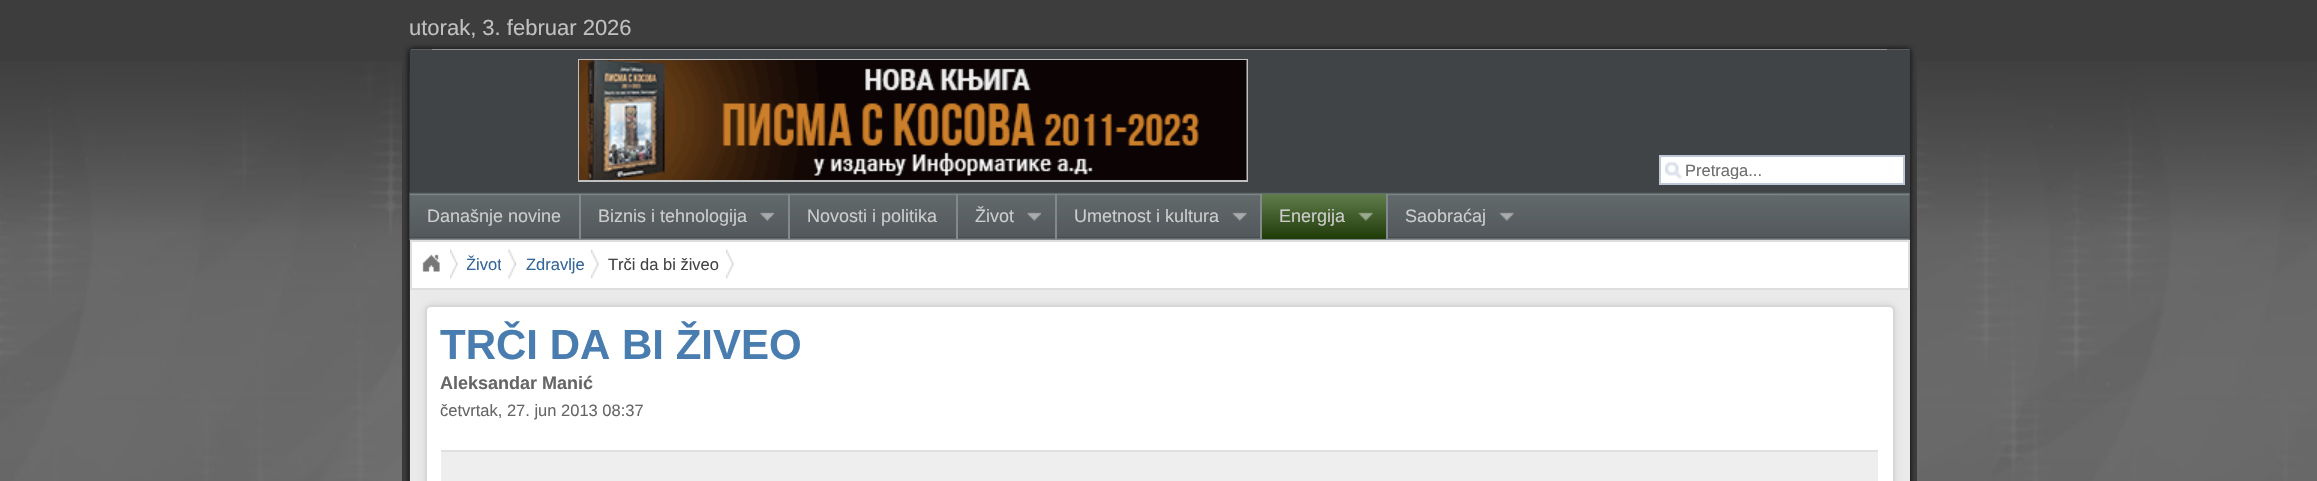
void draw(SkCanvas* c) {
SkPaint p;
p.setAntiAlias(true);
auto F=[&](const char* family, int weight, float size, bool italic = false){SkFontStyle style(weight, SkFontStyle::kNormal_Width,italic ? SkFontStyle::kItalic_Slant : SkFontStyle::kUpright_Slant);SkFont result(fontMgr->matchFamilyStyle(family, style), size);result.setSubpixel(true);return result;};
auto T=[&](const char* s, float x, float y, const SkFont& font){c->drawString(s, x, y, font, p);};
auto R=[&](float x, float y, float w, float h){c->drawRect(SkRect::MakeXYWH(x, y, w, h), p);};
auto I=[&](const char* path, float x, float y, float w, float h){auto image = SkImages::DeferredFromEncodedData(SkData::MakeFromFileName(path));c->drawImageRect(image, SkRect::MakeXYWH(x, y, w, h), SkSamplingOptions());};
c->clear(0xff3d3d3d);
auto f1 = F("Liberation Sans",400,22);
p.setColor(0xffc0c0c0);
T("utorak, 3. februar 2026",409,35,f1);
I("1.png",0,61,2317,420);
p.setColor(0xffffffff);
R(411,49,1499,1);
I("2.png",402,49,9,432);
I("6.png",1909,49,8,432);
I("3.png",402,42,1515,8);
I("4.png",402,45,30,27);
I("5.png",1887,45,30,27);
p.setColor(0xff404446);
R(410,50,1500,142);
p.setStroke(true);
p.setStrokeWidth(2);
p.setColor(0xffc0c0c0);
c->drawRect(SkRect::MakeXYWH(579,60,668,121),p);
I("7.png",579,60,668,120);
p.setStroke(false);
p.setColor(0xffffffff);
R(1661,157,242,26);
I("8.png",1665,162,17,17);
p.setStroke(true);
p.setColor(0xffbdc7d8);
c->drawRect(SkRect::MakeXYWH(1660,156,244,28),p);
c->save();
c->clipRect(SkRect::MakeXYWH(1686,161,213,18));
auto f2 = F("Liberation Sans",400,16.5);
p.setStroke(false);
p.setColor(0xff6e6e6e);
T("Pretraga...",1685,176,f2);
c->restore();
p.setColor(0xff464c4d);
R(1909,192,1,48);
I("9.png",409,192,1501,48);
auto f3 = F("Liberation Sans",400,18);
p.setColor(0xffcccccc);
T("Današnje novine",427,222,f3);
p.setColor(0xff81898d);
R(579,194,2,45);
p.setColor(0xffcccccc);
T("Biznis i tehnologija",598,222,f3);
I("10.png",760,212,14,9);
p.setColor(0xff81898d);
R(788,194,2,45);
p.setColor(0xffcccccc);
T("Novosti i politika",807,222,f3);
p.setColor(0xff81898d);
R(956,194,2,45);
p.setColor(0xffcccccc);
T("Život",975,222,f3);
I("11.png",1027,212,14,9);
p.setColor(0xff81898d);
R(1055,194,2,45);
p.setColor(0xffcccccc);
T("Umetnost i kultura",1074,222,f3);
I("12.png",1232,212,15,9);
p.setColor(0xff81898d);
R(1260,194,2,45);
{
const SkColor colors[] = {0xff627d4d,0xff1f3b08};
const float stops[] = {0,1};
const SkPoint ends[] = {{1324,194}, {1324,239}};
p.setShader(SkGradientShader::MakeLinear(ends, colors, stops, 2, SkTileMode::kClamp));
p.setAlpha(255);
}
R(1262,194,124,45);
p.setShader(nullptr);
p.setColor(0xffcccccc);
T("Energija",1279,222,f3);
I("13.png",1358,212,15,9);
p.setColor(0xff81898d);
R(1386,194,2,45);
p.setColor(0xffcccccc);
T("Saobraćaj",1405,222,f3);
I("14.png",1499,212,15,9);
p.setColor(0xffeaeaea);
R(410,290,1500,191);
p.setColor(0xffffffff);
c->drawRect(SkRect::MakeXYWH(411,241,1498,48),p);
p.setStroke(true);
p.setColor(0xffdedede);
c->drawRect(SkRect::MakeXYWH(411,241,1498,48),p);
I("15.png",450,249,8,30);
I("16.png",422,254,18,18);
I("17.png",508,249,8,30);
c->save();
c->clipRect(SkRect::MakeXYWH(467,249,34,32));
p.setStroke(false);
p.setColor(0xff336699);
T("Život",466,270,f2);
c->restore();
I("15.png",591,249,8,30);
T("Zdravlje",526,270,f2);
I("15.png",726,249,8,30);
p.setColor(0xff444444);
T("Trči da bi živeo",608,270,f2);
p.setColor(0x1a000000);
p.setMaskFilter(SkMaskFilter::MakeBlur(kNormal_SkBlurStyle, 3));
c->drawRoundRect(SkRect::MakeXYWH(425,305,1470,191),6,6,p);
p.setMaskFilter(nullptr);
p.setColor(0xffffffff);
c->drawRoundRect(SkRect::MakeXYWH(426,306,1468,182),5,5,p);
p.setStroke(true);
p.setColor(0xffd7d7d7);
c->drawRoundRect(SkRect::MakeXYWH(426,306,1468,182),5,5,p);
auto f4 = F("Liberation Sans",700,42);
p.setStroke(false);
p.setColor(0xff497caf);
T("TRČI DA BI ŽIVEO",440,359,f4);
auto f5 = F("Liberation Sans",700,18);
p.setColor(0xff666666);
T("Aleksandar Manić",440,389,f5);
T("četvrtak, 27. jun 2013 08:37",440,416,f2);
p.setColor(0xffeeeeee);
R(441,452,1437,29);
p.setColor(0xffe0e0e0);
R(441,450,1437,2);
}
